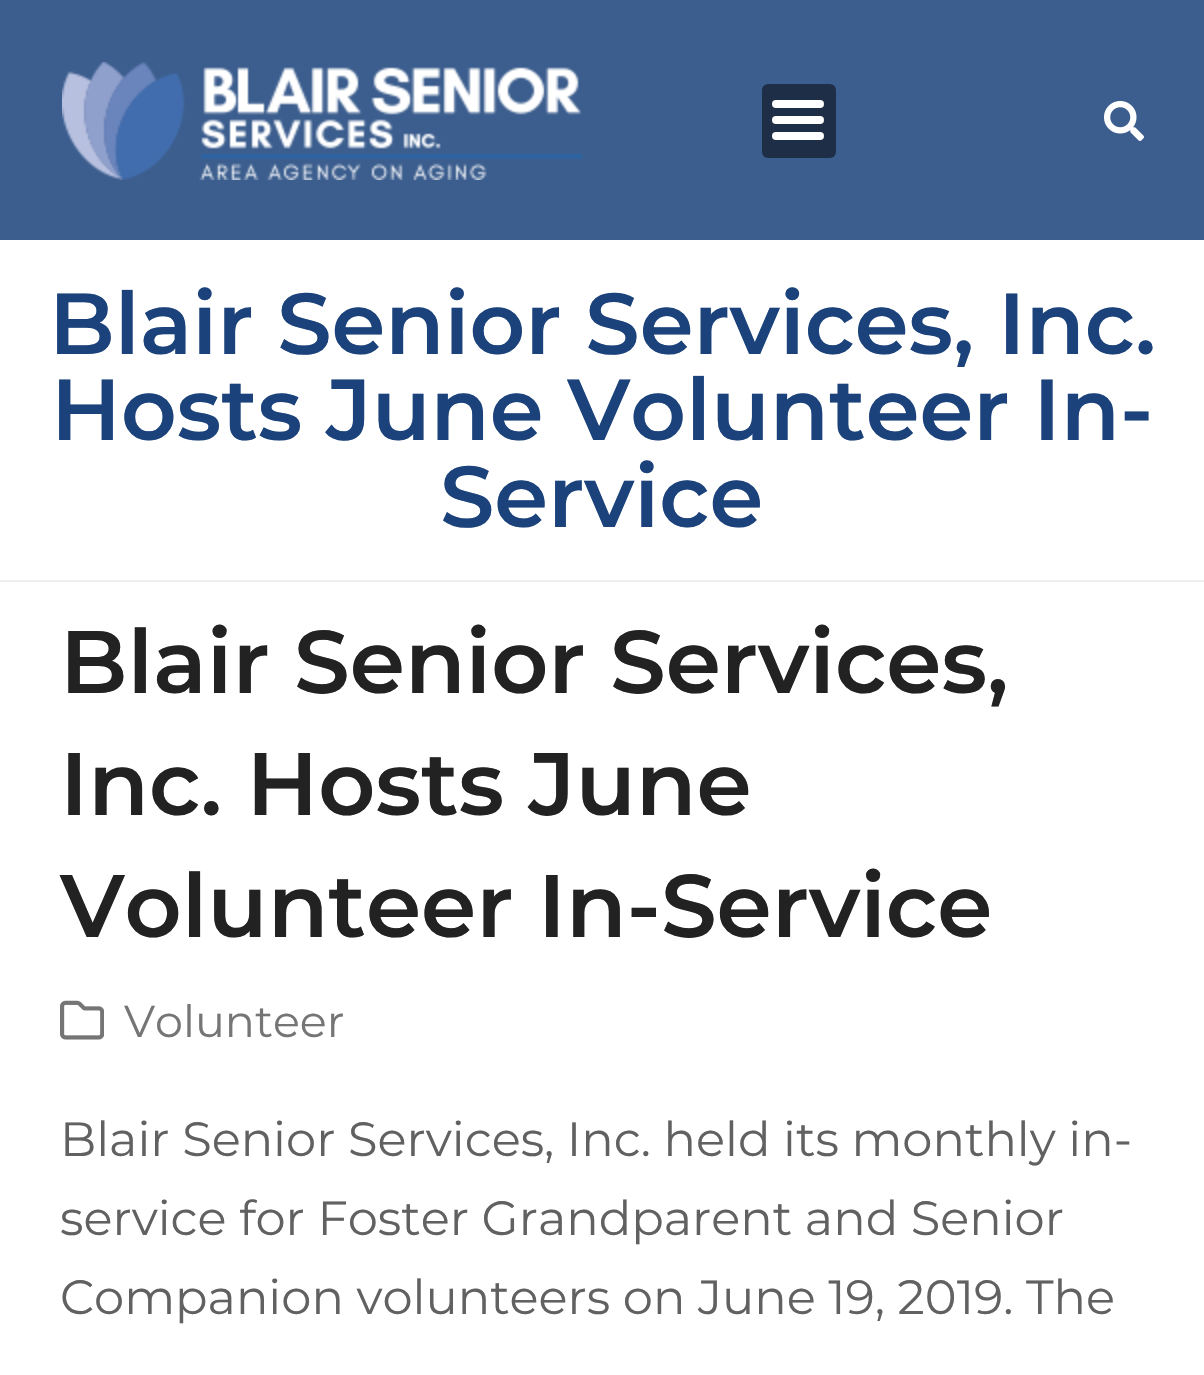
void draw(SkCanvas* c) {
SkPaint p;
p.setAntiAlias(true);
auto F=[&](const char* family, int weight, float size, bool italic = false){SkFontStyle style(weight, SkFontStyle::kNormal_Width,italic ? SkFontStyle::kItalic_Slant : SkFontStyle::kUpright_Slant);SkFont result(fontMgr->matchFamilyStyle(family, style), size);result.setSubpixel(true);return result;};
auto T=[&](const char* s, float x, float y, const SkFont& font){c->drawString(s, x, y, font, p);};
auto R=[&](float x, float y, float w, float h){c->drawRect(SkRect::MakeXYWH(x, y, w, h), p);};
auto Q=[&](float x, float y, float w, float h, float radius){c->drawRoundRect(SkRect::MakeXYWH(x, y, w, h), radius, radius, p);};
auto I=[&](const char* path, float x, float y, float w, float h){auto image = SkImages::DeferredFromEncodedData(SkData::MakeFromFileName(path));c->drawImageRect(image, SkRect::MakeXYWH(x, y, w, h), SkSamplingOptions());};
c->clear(0xffffffff);
p.setColor(0xff3c5e8e);
R(0,0,1204,240);
I("1.png",62,62,520,118);
p.setColor(0xff1d2e46);
Q(762,84,74,74,6);
p.setColor(0xffffffff);
Q(772,116,52,8,4);
Q(772,100,52,8,4);
Q(772,132,52,8,4);
I("2.png",1104,101,40,40);
p.setColor(0xffeeeeee);
R(0,580,1204,2);
auto f1 = F("Montserrat",600,86.4);
p.setColor(0xff1b427b);
T("Blair Senior Services, Inc.",49,354,f1);
T("Hosts June Volunteer In-",51,440,f1);
T("Service",440,527,f1);
auto f2 = F("Montserrat",600,88.6);
p.setColor(0xff222222);
T("Blair Senior Services,",60,693,f2);
T("Inc. Hosts June",60,815,f2);
T("Volunteer In-Service",60,937,f2);
I("3.png",60,1000,44,40);
auto f3 = F("Montserrat",400,44.5);
p.setColor(0xff757575);
T("Volunteer",124,1037,f3);
auto f4 = F("Montserrat",400,48);
p.setColor(0xff616161);
T("Blair Senior Services, Inc. held its monthly in-",60,1156,f4);
T("service for Foster Grandparent and Senior",60,1235,f4);
T("Companion volunteers on June 19, 2019. The",60,1314,f4);
}
